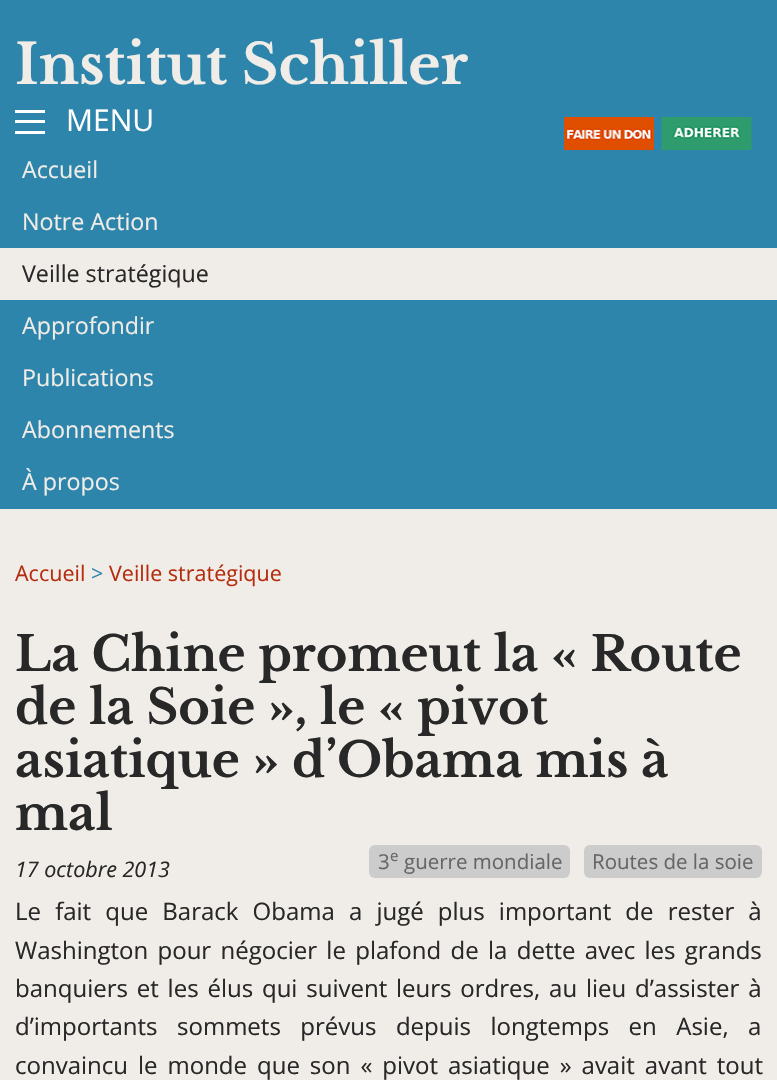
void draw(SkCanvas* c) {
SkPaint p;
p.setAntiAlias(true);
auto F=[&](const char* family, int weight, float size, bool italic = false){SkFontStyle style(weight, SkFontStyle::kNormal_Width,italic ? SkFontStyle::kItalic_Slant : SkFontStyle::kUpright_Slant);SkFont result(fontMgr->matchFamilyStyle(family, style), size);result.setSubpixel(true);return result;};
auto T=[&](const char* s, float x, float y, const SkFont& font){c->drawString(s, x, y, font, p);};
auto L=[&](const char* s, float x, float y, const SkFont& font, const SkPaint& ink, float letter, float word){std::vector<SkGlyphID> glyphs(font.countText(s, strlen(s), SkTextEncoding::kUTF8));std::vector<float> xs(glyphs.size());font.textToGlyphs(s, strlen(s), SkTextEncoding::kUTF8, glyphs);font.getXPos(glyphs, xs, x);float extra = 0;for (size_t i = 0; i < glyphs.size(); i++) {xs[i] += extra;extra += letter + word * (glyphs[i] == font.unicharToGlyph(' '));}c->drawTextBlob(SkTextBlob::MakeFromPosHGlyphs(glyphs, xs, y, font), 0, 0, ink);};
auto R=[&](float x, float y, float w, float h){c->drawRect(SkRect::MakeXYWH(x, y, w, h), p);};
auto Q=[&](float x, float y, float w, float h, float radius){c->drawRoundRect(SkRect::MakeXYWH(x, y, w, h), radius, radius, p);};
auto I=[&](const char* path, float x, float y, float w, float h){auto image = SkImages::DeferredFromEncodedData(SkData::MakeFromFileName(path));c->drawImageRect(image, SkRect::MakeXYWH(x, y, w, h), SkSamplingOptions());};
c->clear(0xfff0ece7);
p.setColor(0xff2e85ab);
R(0,0,777,509);
auto f1 = F("Libre Baskerville",700,55.25);
p.setColor(0xfff0ece7);
T("Institut Schiller",15,84,f1);
p.setColor(0xffffffff);
R(15,131,30,3);
R(15,120,30,3);
R(15,110,30,3);
auto f2 = F("Open Sans",400,30);
T("MENU",66,131,f2);
auto f3 = F("Open Sans",400,23.25);
p.setColor(0xfff0ece7);
T("Accueil",22,178,f3);
T("Notre Action",22,230,f3);
R(0,248,777,52);
p.setColor(0xff282828);
T("Veille stratégique",22,282,f3);
p.setColor(0xfff0ece7);
T("Approfondir",22,334,f3);
T("Publications",22,386,f3);
T("Abonnements",22,438,f3);
T("À propos",22,490,f3);
I("1.png",564,117,90,33);
I("2.png",661,117,91,33);
auto f4 = F("Open Sans",400,21.5);
p.setColor(0xffb52d0e);
T("Accueil",15,581,f4);
p.setColor(0xff2e85ab);
T(">",91,581,f4);
p.setColor(0xffb52d0e);
T("Veille stratégique",109,581,f4);
auto f5 = F("Libre Baskerville",700,48);
p.setColor(0xff282828);
T("La Chine promeut la « Route",15,671,f5);
T("de la Soie », le « pivot",15,724,f5);
T("asiatique » d’Obama mis à",15,777,f5);
T("mal",15,830,f5);
auto f6 = F("Open Sans",400,21.5,true);
T("17 octobre 2013",15,877,f6);
p.setColor(0xffcccccc);
Q(369,845,201,33,6);
auto f7 = F("Open Sans",400,20.5);
p.setColor(0xff666666);
T("3",378,869,f7);
auto f8 = F("Open Sans",400,15);
T("e",390,861,f8);
T("guerre mondiale",404,869,f7);
p.setColor(0xffcccccc);
Q(584,845,178,33,6);
p.setColor(0xff666666);
T("Routes de la soie",592,869,f7);
auto f9 = F("Open Sans",400,24);
p.setColor(0xff282828);
L("Le fait que Barack Obama a jugé plus important de rester à",15,920,f9,p,0,7.9);
L("Washington pour négocier le plafond de la dette avec les grands",15,959,f9,p,0,3.1);
L("banquiers et les élus qui suivent leurs ordres, au lieu d’assister à",15,997,f9,p,0,2.6);
L("d’importants sommets prévus depuis longtemps en Asie, a",15,1035,f9,p,0,13.25);
L("convaincu le monde que son « pivot asiatique » avait avant tout",15,1074,f9,p,0,3.75);
}
